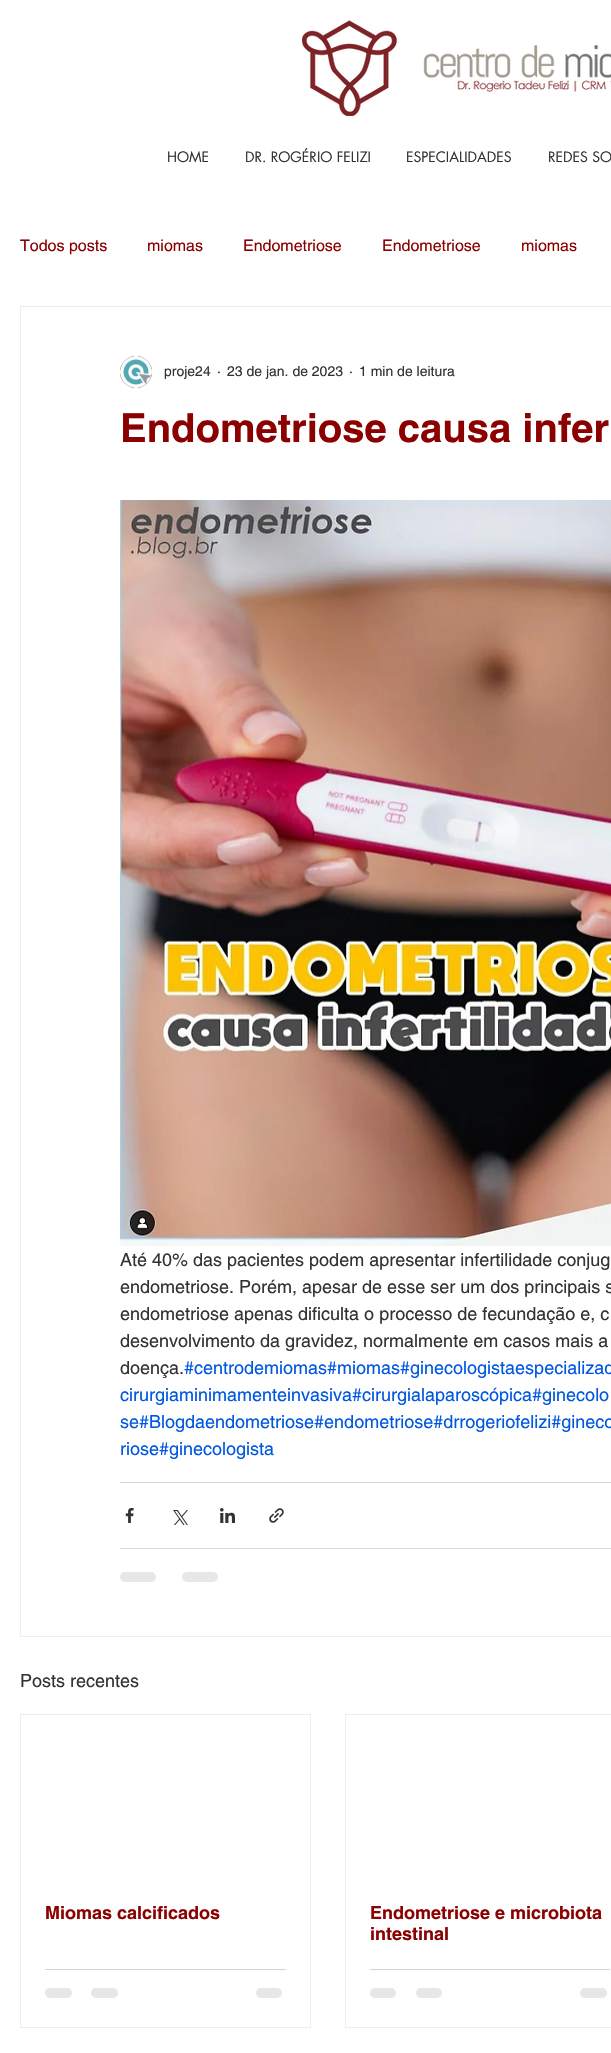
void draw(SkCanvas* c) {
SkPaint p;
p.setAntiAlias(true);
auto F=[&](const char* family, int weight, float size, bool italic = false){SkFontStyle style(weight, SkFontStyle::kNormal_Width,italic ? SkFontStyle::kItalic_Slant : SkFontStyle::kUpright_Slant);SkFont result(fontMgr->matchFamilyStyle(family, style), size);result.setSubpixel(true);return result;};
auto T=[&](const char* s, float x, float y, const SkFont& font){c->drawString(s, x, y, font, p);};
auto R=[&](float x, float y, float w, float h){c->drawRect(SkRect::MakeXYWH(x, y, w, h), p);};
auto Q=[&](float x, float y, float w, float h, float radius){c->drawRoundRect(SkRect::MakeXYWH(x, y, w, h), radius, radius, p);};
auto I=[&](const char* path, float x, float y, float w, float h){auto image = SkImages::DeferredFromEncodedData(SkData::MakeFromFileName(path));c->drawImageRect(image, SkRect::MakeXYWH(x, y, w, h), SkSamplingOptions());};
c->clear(0xffffffff);
I("1.png",302,20,309,96);
auto f1 = F("futura",400,14);
p.setColor(0xff333333);
T("HOME",167,162,f1);
T("DR. ROGÉRIO FELIZI",245,162,f1);
T("ESPECIALIDADES",406,162,f1);
T("REDES SO",548,162,f1);
auto f2 = F("helvetica",400,16);
p.setColor(0xff8b0000);
T("Todos posts",20,251,f2);
T("miomas",147,251,f2);
T("Endometriose",243,251,f2);
T("Endometriose",382,251,f2);
T("miomas",521,251,f2);
p.setStroke(true);
p.setStrokeWidth(1);
p.setColor(0xffeeecec);
c->drawRect(SkRect::MakeXYWH(20.5,306.5,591,1330),p);
I("2.png",120,356,32,32);
auto f3 = F("helvetica",400,14);
p.setStroke(false);
p.setColor(0xff333333);
T("proje24",164,376,f3);
T("·",217,376,f3);
T("23 de jan. de 2023",227,376,f3);
T("·",349,376,f3);
T("1 min de leitura",359,376,f3);
auto f4 = F("helvetica",700,40);
p.setColor(0xff8b0000);
T("Endometriose causa infer",120,442,f4);
I("3.png",120,500,491,746);
auto f5 = F("helvetica",400,18);
p.setColor(0xff333333);
T("Até 40% das pacientes podem apresentar infertilidade conjug",120,1266,f5);
T("endometriose. Porém, apesar de esse ser um dos principais s",120,1293,f5);
T("endometriose apenas dificulta o processo de fecundação e, c",120,1320,f5);
T("desenvolvimento da gravidez, normalmente em casos mais a",120,1347,f5);
T("doença.",120,1374,f5);
p.setColor(0xff0057e1);
T("#centrodemiomas#miomas#ginecologistaespecializad",184,1374,f5);
T("cirurgiaminimamenteinvasiva#cirurgialaparoscópica#ginecolo",120,1401,f5);
T("se#Blogdaendometriose#endometriose#drrogeriofelizi#gineco",120,1428,f5);
T("riose#ginecologista",120,1455,f5);
p.setColor(0xffd6d6d6);
R(120,1482,491,1);
I("4.png",125,1508,9,15);
I("5.png",173,1510,15,15);
I("6.png",220,1508,15,15);
I("7.png",269,1508,15,15);
R(120,1548,491,1);
p.setColor(0xffe7e7e7);
Q(120,1572,36,10,5);
Q(182,1572,36,10,5);
p.setColor(0xff333333);
T("Posts recentes",20,1687,f5);
p.setStroke(true);
p.setColor(0xffeeecec);
c->drawRect(SkRect::MakeXYWH(20.5,1714.5,290,313),p);
auto f6 = F("helvetica",700,18);
p.setStroke(false);
p.setColor(0xff8b0000);
T("Miomas calcificados",45,1919,f6);
p.setColor(0xffd6d6d6);
R(45,1969,241,1);
p.setColor(0xffe7e7e7);
Q(45,1988,27,10,5);
Q(91,1988,27,10,5);
Q(256,1988,26,10,5);
p.setStroke(true);
p.setColor(0xffeeecec);
c->drawRect(SkRect::MakeXYWH(345.5,1714.5,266,313),p);
p.setStroke(false);
p.setColor(0xff8b0000);
T("Endometriose e microbiota",370,1919,f6);
T("intestinal",370,1940,f6);
p.setColor(0xffd6d6d6);
R(370,1969,240,1);
p.setColor(0xffe7e7e7);
Q(370,1988,26,10,5);
Q(416,1988,26,10,5);
Q(580,1988,27,10,5);
}
